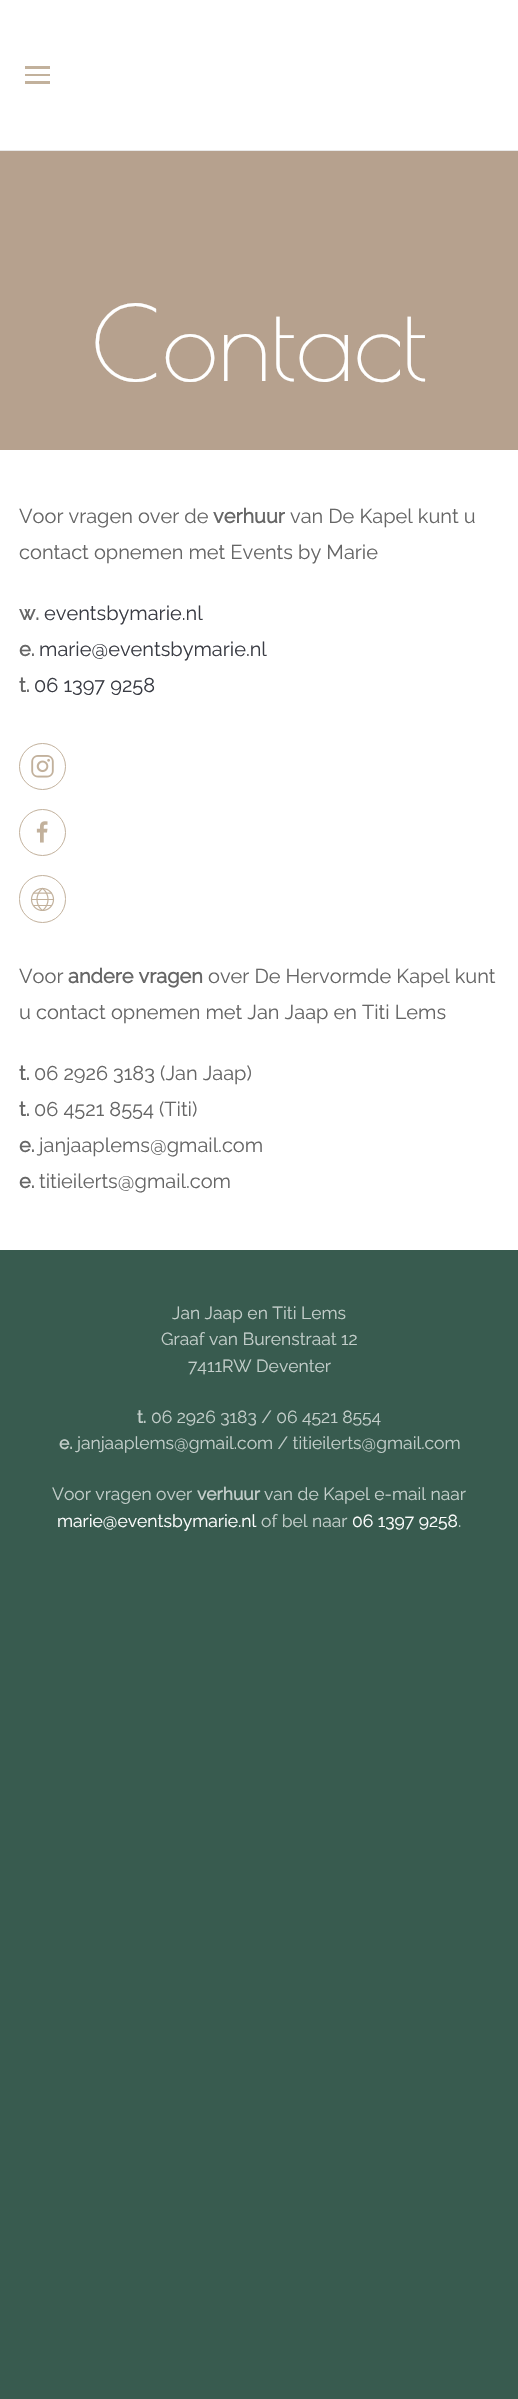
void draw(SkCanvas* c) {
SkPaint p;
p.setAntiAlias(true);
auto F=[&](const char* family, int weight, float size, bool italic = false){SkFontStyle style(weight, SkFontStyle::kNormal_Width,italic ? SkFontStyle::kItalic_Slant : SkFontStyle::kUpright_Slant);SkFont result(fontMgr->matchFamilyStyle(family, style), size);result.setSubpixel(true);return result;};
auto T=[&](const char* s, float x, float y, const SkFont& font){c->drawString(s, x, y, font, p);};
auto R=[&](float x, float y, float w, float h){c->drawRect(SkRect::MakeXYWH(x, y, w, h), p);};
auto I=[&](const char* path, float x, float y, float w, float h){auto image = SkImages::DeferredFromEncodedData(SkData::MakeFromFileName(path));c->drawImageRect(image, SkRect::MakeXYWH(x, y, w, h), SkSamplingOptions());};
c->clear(0xffffffff);
p.setColor(0xffe8e8e8);
R(0,150,518,1);
p.setColor(0xffc2b19c);
R(25,66,25,3);
R(25,74,25,2);
R(25,81,25,3);
p.setColor(0xffb6a18e);
R(0,151,518,299);
auto f1 = F("Poiret One",400,102);
p.setColor(0xffffffff);
T("Contact",91,381,f1);
auto f2 = F("Raleway",100,20);
p.setColor(0xff666666);
T("Voor vragen over de",19,523,f2);
auto f3 = F("Raleway",700,20);
T("verhuur",213,523,f3);
T("van De Kapel kunt u",290,523,f2);
T("contact opnemen met Events by Marie",19,559,f2);
T("w.",19,620,f3);
p.setColor(0xff3a3c44);
T("eventsbymarie.nl",44,620,f2);
p.setColor(0xff666666);
T("e.",19,656,f3);
p.setColor(0xff3a3c44);
T("marie@eventsbymarie.nl",39,656,f2);
p.setColor(0xff666666);
T("t.",19,692,f3);
p.setColor(0xff3a3c44);
T("06 1397 9258",34,692,f2);
p.setStroke(true);
p.setStrokeWidth(1);
p.setColor(0xffc2b19c);
c->drawCircle(42.5,766.5,23,p);
I("1.png",31,755,23,23);
c->drawCircle(42.5,832.5,23,p);
I("2.png",36,821,12,22);
c->drawRoundRect(SkRect::MakeXYWH(19.5,875.5,46,47),23,23,p);
I("3.png",30,887,25,24);
p.setStroke(false);
p.setColor(0xff666666);
T("Voor",19,983,f2);
T("andere vragen",68,983,f3);
T("over De Hervormde Kapel kunt",208,983,f2);
T("u contact opnemen met Jan Jaap en Titi Lems",19,1019,f2);
T("t.",19,1080,f3);
T("06 2926 3183 (Jan Jaap)",34,1080,f2);
T("t.",19,1116,f3);
T("06 4521 8554 (Titi)",34,1116,f2);
T("e.",19,1152,f3);
T("janjaaplems@gmail.com",39,1152,f2);
T("e.",19,1188,f3);
T("titieilerts@gmail.com",39,1188,f2);
p.setColor(0xff385b4f);
R(0,1250,518,1149);
auto f4 = F("Raleway",100,17.5);
p.setColor(0xffc3ceca);
T("Jan Jaap en Titi Lems",172,1319,f4);
T("Graaf van Burenstraat 12",161,1345,f4);
T("7411RW Deventer",188,1372,f4);
auto f5 = F("Raleway",700,17.5);
T("t.",137,1423,f5);
T("06 2926 3183 / 06 4521 8554",151,1423,f4);
T("e.",59,1449,f5);
T("janjaaplems@gmail.com / titieilerts@gmail.com",77,1449,f4);
T("Voor vragen over",52,1500,f4);
T("verhuur",197,1500,f5);
T("van de Kapel e-mail naar",264,1500,f4);
p.setColor(0xffffffff);
T("marie@eventsbymarie.nl",57,1527,f4);
p.setColor(0xffc3ceca);
T("of bel naar",261,1527,f4);
p.setColor(0xffffffff);
T("06 1397 9258",352,1527,f4);
p.setColor(0xffc3ceca);
T(".",458,1527,f4);
}
